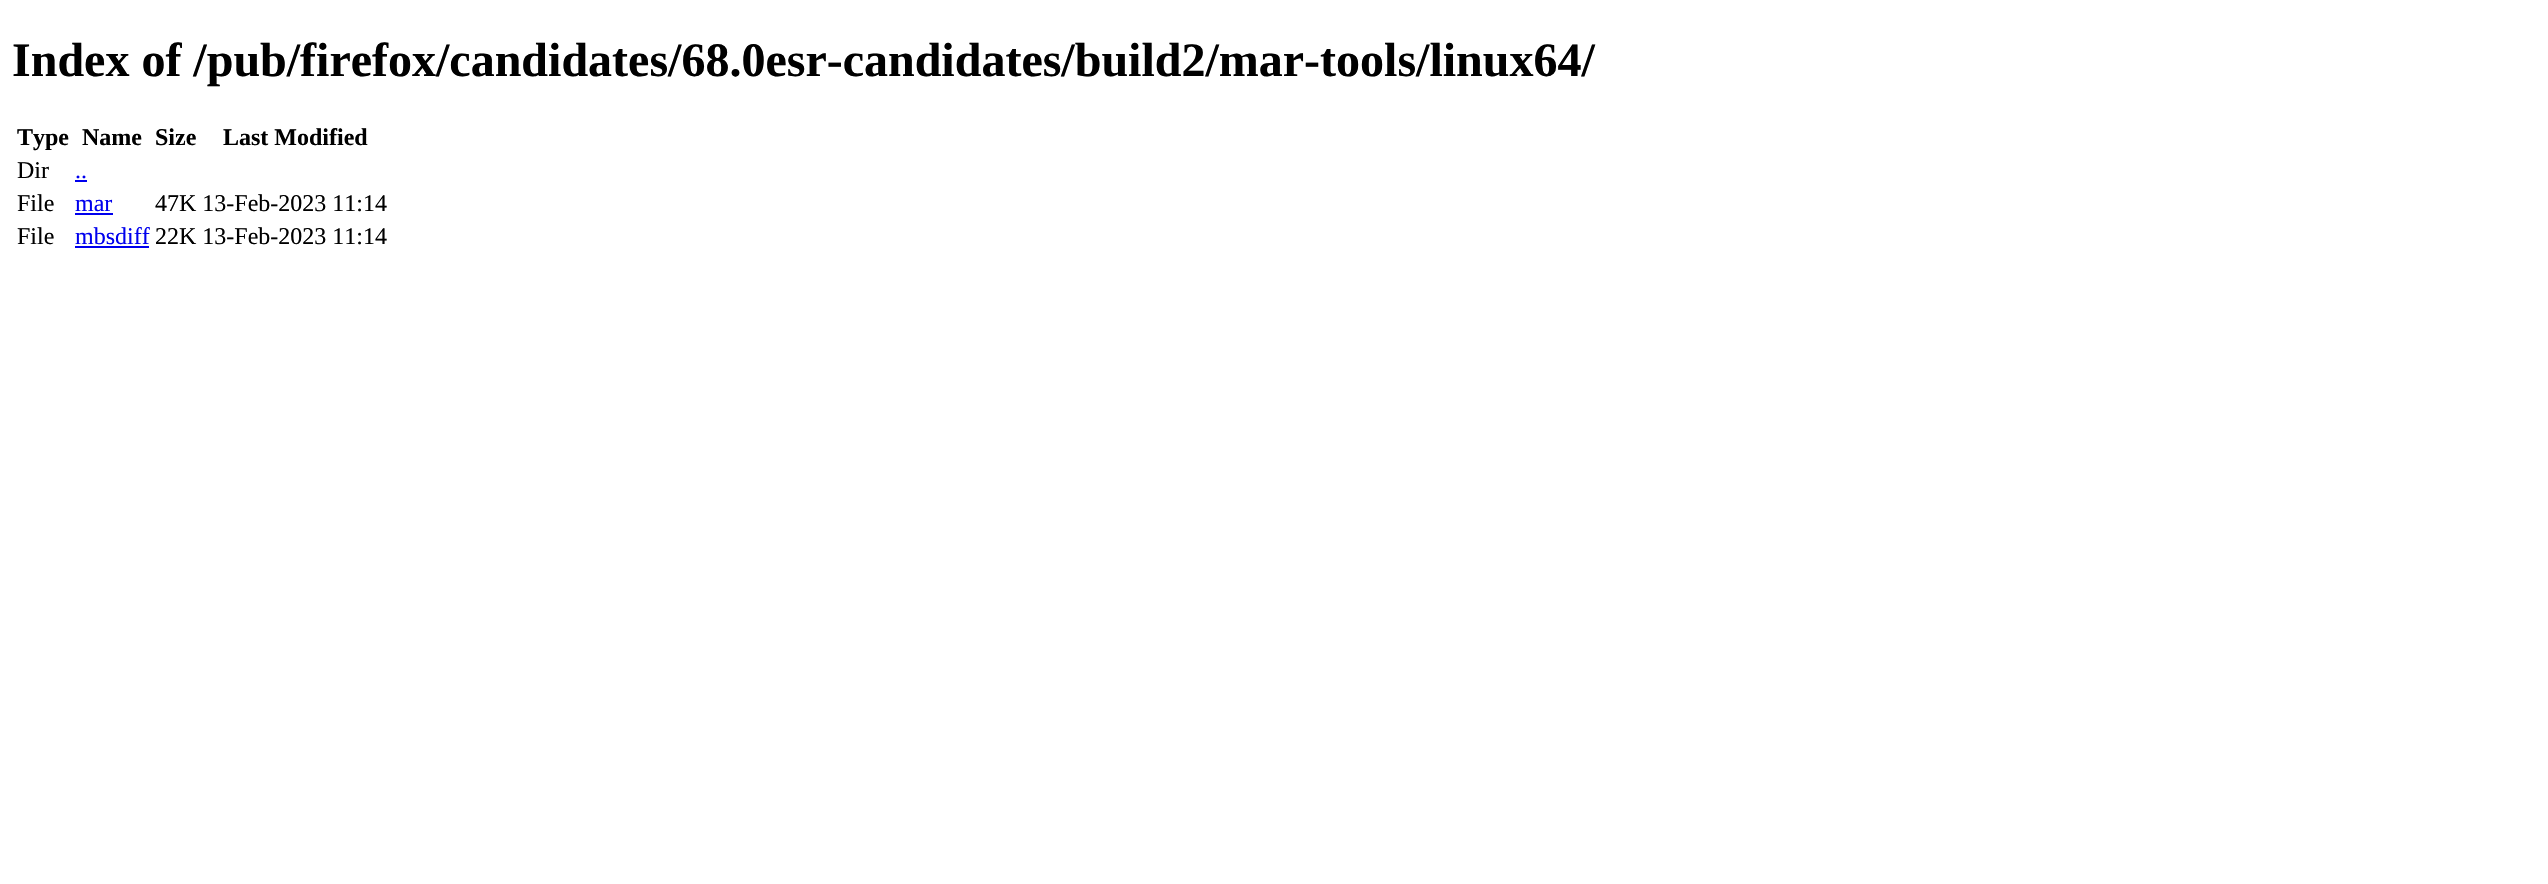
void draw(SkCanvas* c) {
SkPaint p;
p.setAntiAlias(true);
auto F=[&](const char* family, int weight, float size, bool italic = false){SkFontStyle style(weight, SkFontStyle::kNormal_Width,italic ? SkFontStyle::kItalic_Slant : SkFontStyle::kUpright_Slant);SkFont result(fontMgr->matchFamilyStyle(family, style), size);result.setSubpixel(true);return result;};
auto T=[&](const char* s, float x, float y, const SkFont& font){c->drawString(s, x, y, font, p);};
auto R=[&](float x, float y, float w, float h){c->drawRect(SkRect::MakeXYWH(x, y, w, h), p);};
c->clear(0xffffffff);
auto f1 = F("Liberation Serif",700,48);
p.setColor(0xff000000);
T("Index of /pub/firefox/candidates/68.0esr-candidates/build2/mar-tools/linux64/",12,76,f1);
auto f2 = F("Liberation Serif",700,24);
T("Type",17,145,f2);
T("Name",82,145,f2);
T("Size",155,145,f2);
T("Last Modified",223,145,f2);
auto f3 = F("Liberation Serif",400,24);
T("Dir",17,178,f3);
p.setColor(0xff0000ee);
T("..",75,178,f3);
R(75,180,12,2);
p.setColor(0xff000000);
T("File",17,211,f3);
p.setColor(0xff0000ee);
T("mar",75,211,f3);
R(75,213,38,2);
p.setColor(0xff000000);
T("47K 13-Feb-2023 11:14",155,211,f3);
T("File",17,244,f3);
p.setColor(0xff0000ee);
T("mbsdiff",75,244,f3);
R(75,246,74,2);
p.setColor(0xff000000);
T("22K 13-Feb-2023 11:14",155,244,f3);
}
